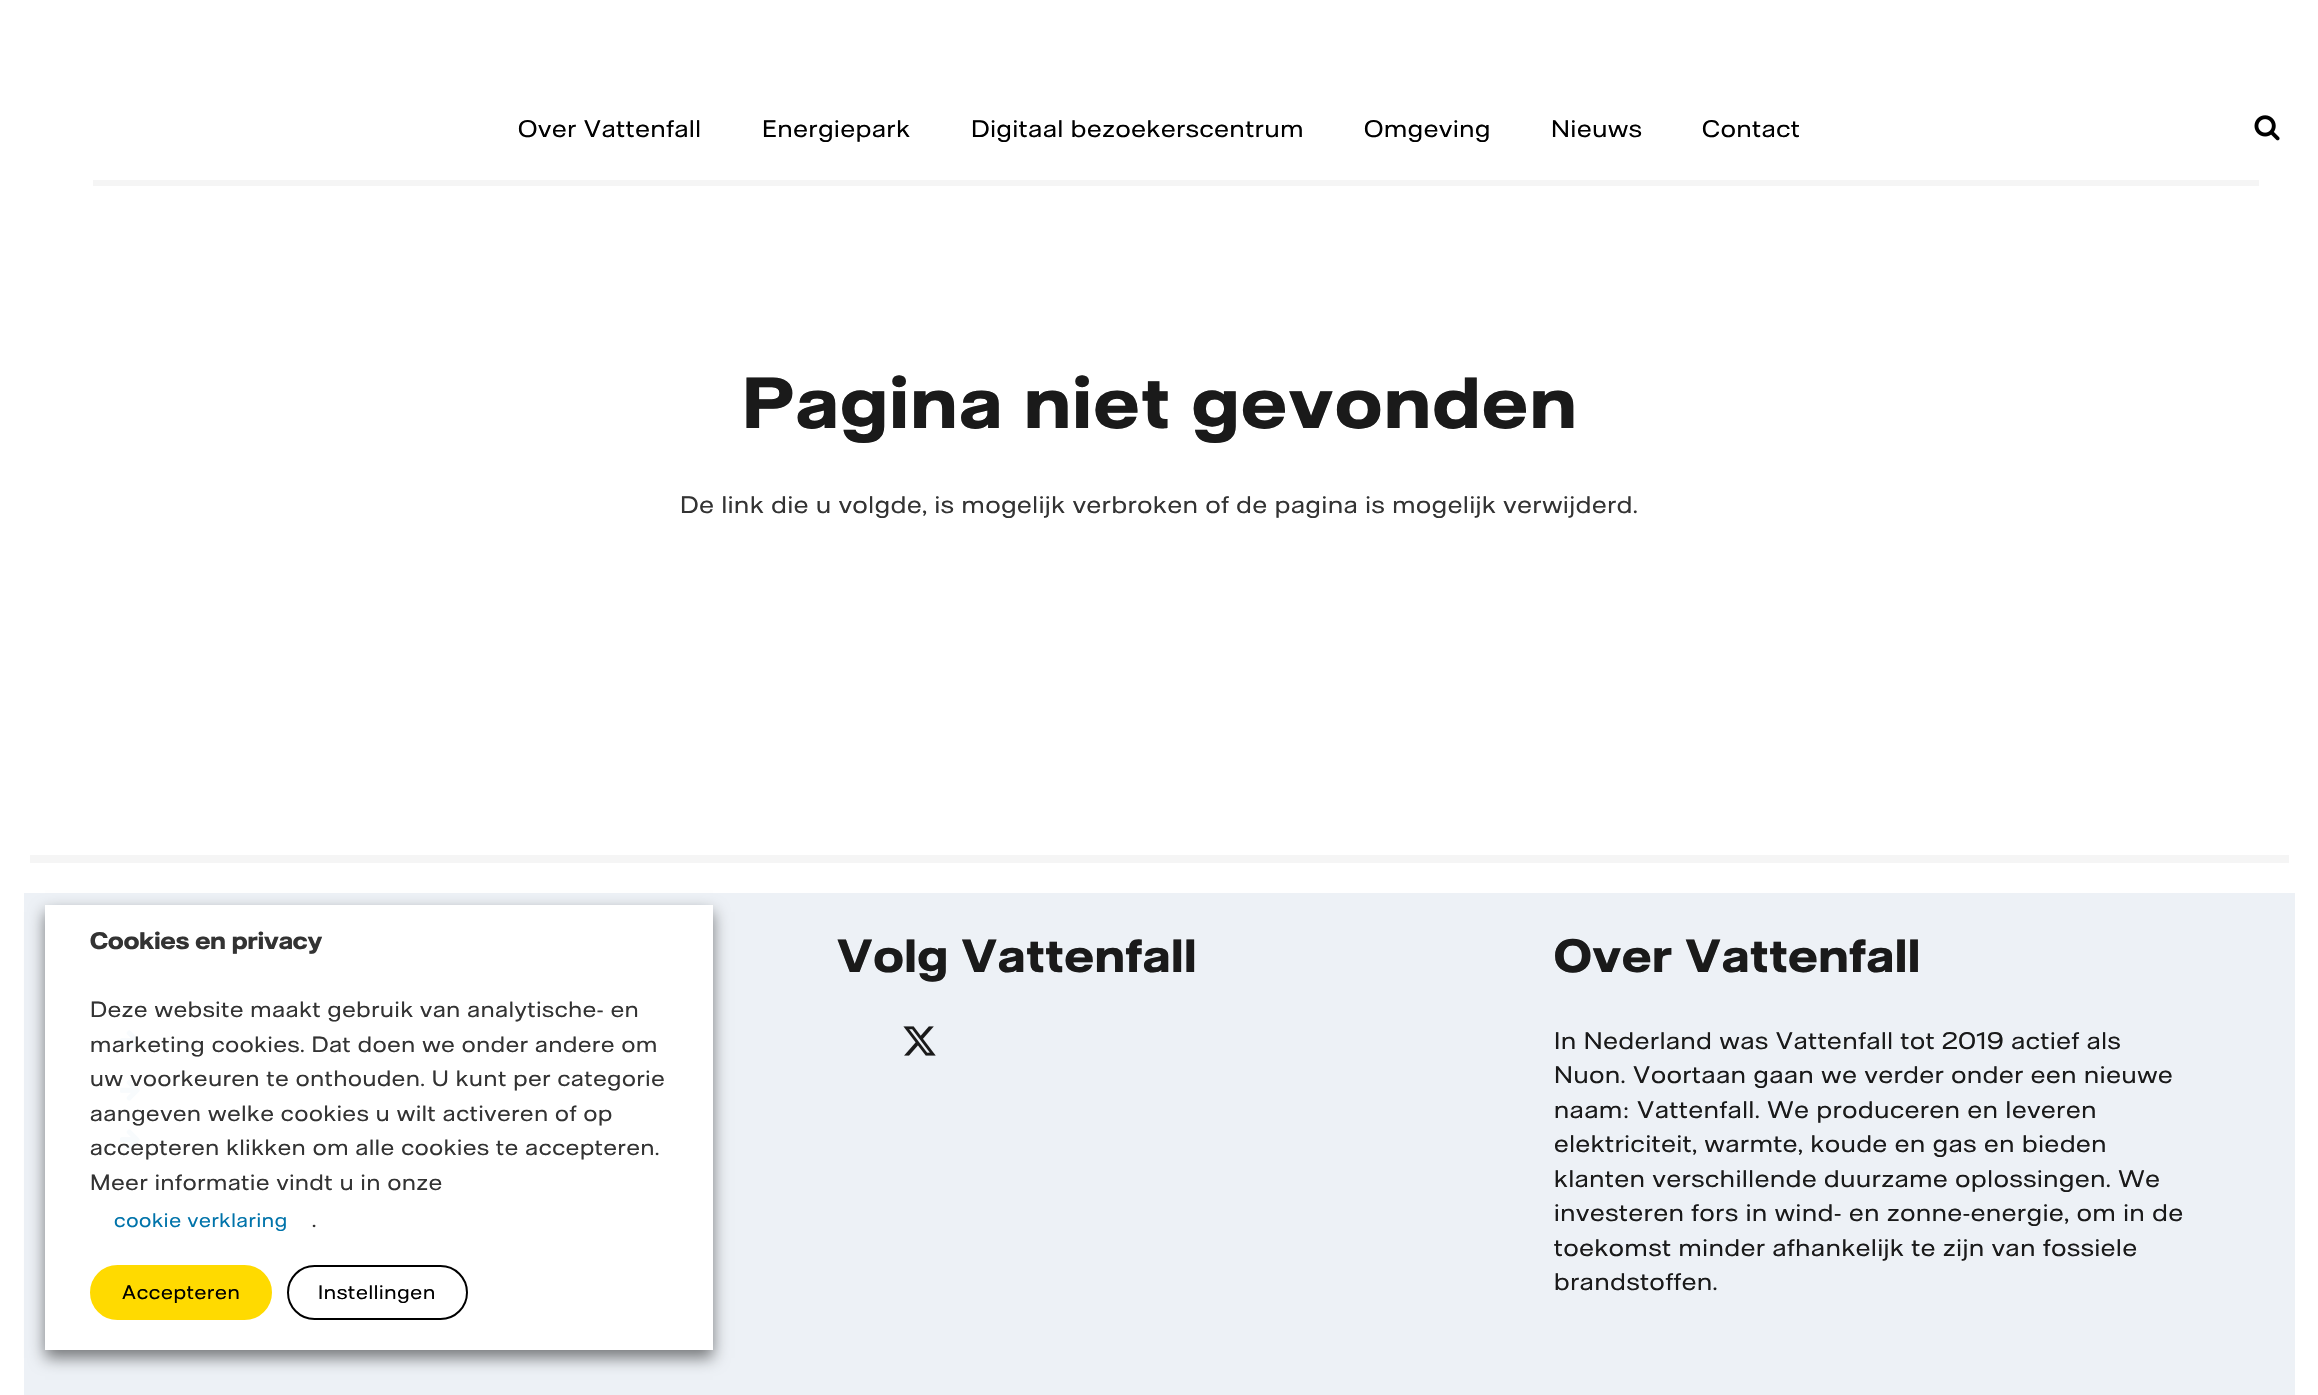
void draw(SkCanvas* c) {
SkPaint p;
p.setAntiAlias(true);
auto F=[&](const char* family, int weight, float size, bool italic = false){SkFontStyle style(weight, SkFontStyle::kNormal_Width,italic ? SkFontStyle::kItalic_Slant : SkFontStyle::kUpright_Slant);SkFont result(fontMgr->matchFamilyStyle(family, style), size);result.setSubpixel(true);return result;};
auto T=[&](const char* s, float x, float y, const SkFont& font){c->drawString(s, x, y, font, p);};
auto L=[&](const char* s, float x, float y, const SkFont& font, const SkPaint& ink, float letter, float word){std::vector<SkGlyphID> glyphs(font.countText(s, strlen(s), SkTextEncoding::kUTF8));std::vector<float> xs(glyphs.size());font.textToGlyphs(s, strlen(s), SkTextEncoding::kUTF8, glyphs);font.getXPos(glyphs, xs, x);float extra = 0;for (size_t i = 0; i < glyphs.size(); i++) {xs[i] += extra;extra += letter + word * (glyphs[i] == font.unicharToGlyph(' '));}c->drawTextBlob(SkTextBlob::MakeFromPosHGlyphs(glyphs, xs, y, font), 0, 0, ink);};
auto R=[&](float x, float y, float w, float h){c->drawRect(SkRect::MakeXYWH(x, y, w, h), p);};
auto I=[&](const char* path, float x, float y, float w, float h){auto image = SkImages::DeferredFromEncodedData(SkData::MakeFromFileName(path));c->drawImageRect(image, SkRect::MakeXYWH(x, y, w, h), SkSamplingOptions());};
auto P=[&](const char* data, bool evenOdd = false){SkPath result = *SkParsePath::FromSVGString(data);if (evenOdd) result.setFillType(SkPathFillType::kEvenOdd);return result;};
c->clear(0xffffffff);
auto f1 = F("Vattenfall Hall",400,24);
p.setColor(0xff000000);
L("Over Vattenfall",518,137,f1,p,.72,0);
L("Energiepark",762,137,f1,p,.72,0);
L("Digitaal bezoekerscentrum",971,137,f1,p,.72,0);
L("Omgeving",1364,137,f1,p,.72,0);
L("Nieuws",1551,137,f1,p,.72,0);
L("Contact",1702,137,f1,p,.72,0);
I("1.png",2254,115,26,26);
p.setColor(0xfff5f5f5);
R(93,180,2166,6);
auto f2 = F("Vattenfall Hall",700,72);
p.setColor(0xff1a1a1a);
L("Pagina niet gevonden",742,428,f2,p,2.2,0);
p.setColor(0xff333333);
L("De link die u volgde, is mogelijk verbroken of de pagina is mogelijk verwijderd.",680,513,f1,p,.72,0);
p.setColor(0xffedf1f6);
R(24,893,2271,502);
I("3.png",120,1030,20,22);
I("4.png",120,1079,20,22);
I("3.png",120,1129,20,22);
c->save();
c->clipPath(P("M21 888h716v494h-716zm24 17h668v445h-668z",true),true);
p.setColor(0x80000000);
p.setMaskFilter(SkMaskFilter::MakeBlur(kNormal_SkBlurStyle, 7.5));
c->drawRect(SkRect::MakeXYWH(45,912,668,446),p);
p.setMaskFilter(nullptr);
c->restore();
p.setColor(0xf7ffffff);
R(45,905,668,445);
auto f3 = F("Vattenfall Hall",700,24);
p.setColor(0xff333333);
T("Cookies en privacy",90,949,f3);
auto f4 = F("Vattenfall Hall",400,22);
L("Deze website maakt gebruik van analytische- en",90,1017,f4,p,.72,0);
L("marketing cookies. Dat doen we onder andere om",90,1052,f4,p,.72,0);
L("uw voorkeuren te onthouden. U kunt per categorie",90,1086,f4,p,.72,0);
L("aangeven welke cookies u wilt activeren of op",90,1121,f4,p,.72,0);
L("accepteren klikken om alle cookies te accepteren.",90,1155,f4,p,.72,0);
L("Meer informatie vindt u in onze",90,1190,f4,p,.72,0);
auto f5 = F("Vattenfall Hall",400,19.5);
p.setColor(0xff0073aa);
L("cookie verklaring",114,1227,f5,p,.72,0);
p.setColor(0xff333333);
L(".",312,1227,f4,p,.72,0);
p.setColor(0xffffda00);
c->drawRoundRect(SkRect::MakeXYWH(91,1266,180,53),26.5,26.5,p);
p.setStroke(true);
p.setStrokeWidth(2);
c->drawRoundRect(SkRect::MakeXYWH(91,1266,180,53),26.5,26.5,p);
p.setStroke(false);
p.setColor(0xff000000);
L("Accepteren",122,1299,f5,p,.72,0);
p.setStroke(true);
c->drawRoundRect(SkRect::MakeXYWH(288,1266,179,53),26.5,26.5,p);
p.setStroke(false);
L("Instellingen",318,1299,f5,p,.72,0);
p.setColor(0xfff5f5f5);
R(30,855,2259,8);
auto f6 = F("Vattenfall Hall",700,46.5);
p.setColor(0xff1a1a1a);
L("Volg Vattenfall",837,972,f6,p,.9,0);
I("2.png",903,1026,33,30);
L("Over Vattenfall",1554,972,f6,p,.9,0);
L("In Nederland was Vattenfall tot 2019 actief als",1554,1049,f1,p,.72,0);
L("Nuon. Voortaan gaan we verder onder een nieuwe",1554,1083,f1,p,.72,0);
L("naam: Vattenfall. We produceren en leveren",1554,1118,f1,p,.72,0);
L("elektriciteit, warmte, koude en gas en bieden",1554,1152,f1,p,.72,0);
L("klanten verschillende duurzame oplossingen. We",1554,1187,f1,p,.72,0);
L("investeren fors in wind- en zonne-energie, om in de",1554,1221,f1,p,.72,0);
L("toekomst minder afhankelijk te zijn van fossiele",1554,1256,f1,p,.72,0);
L("brandstoffen.",1554,1290,f1,p,.72,0);
}
